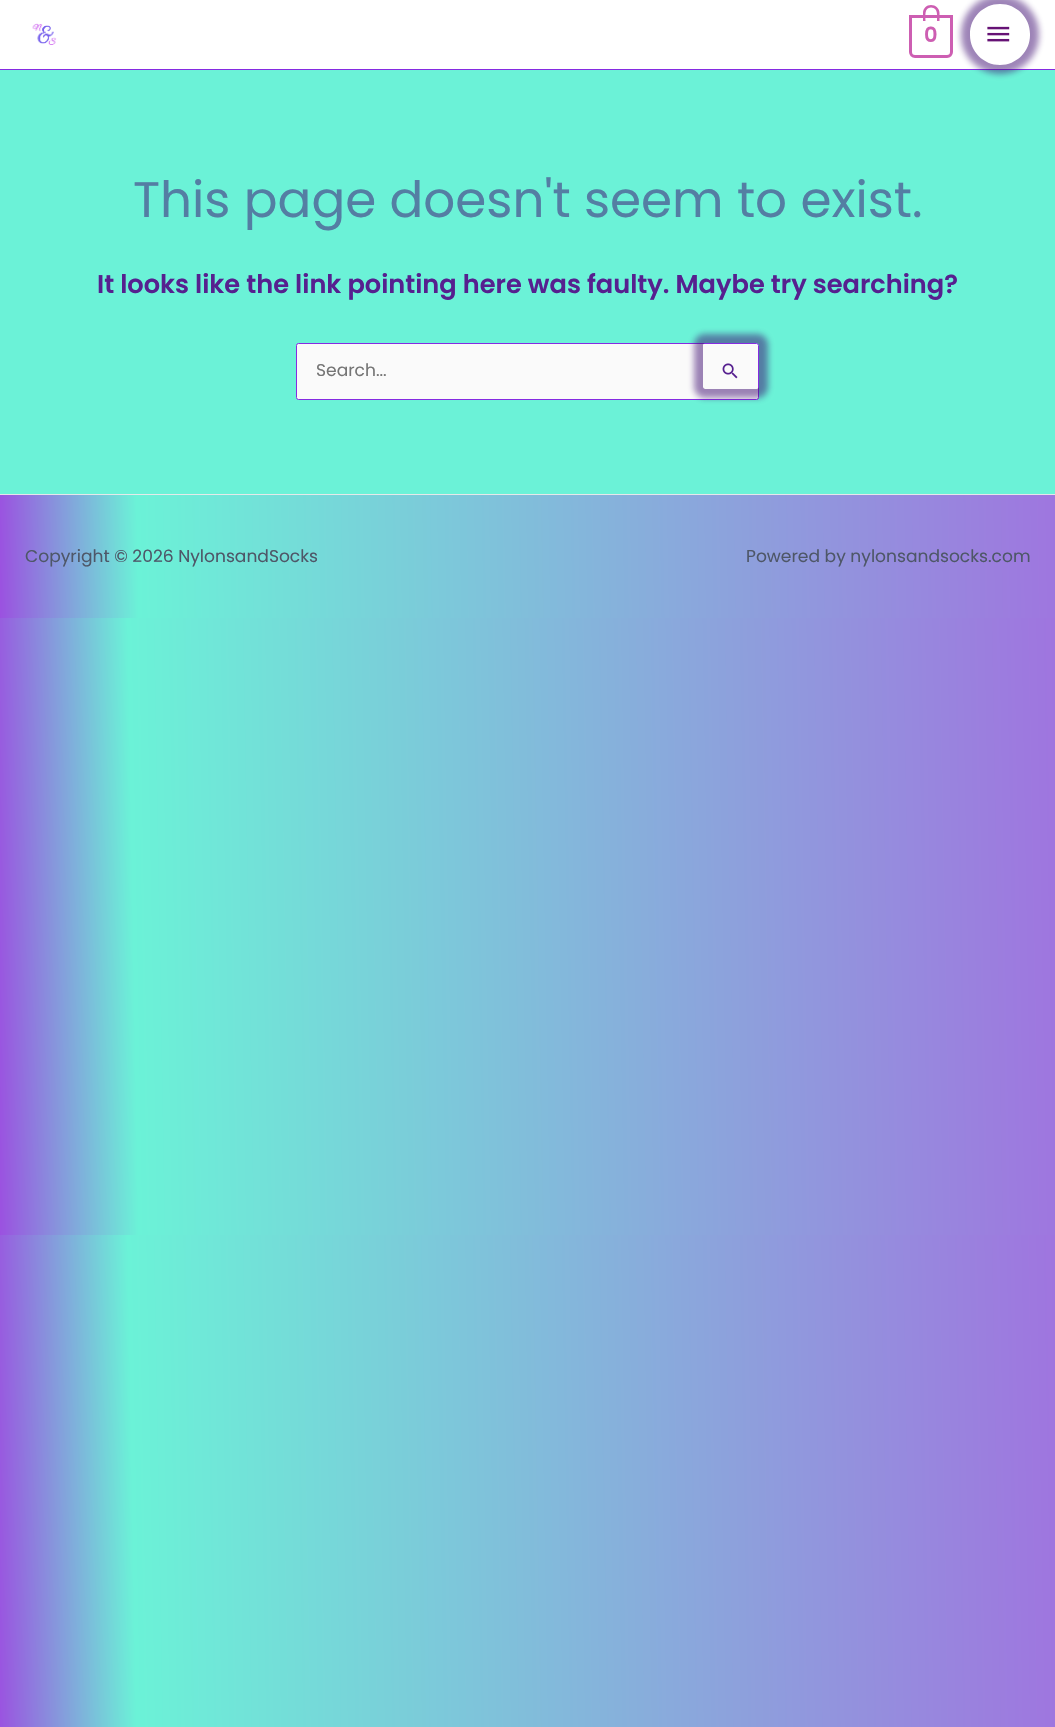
void draw(SkCanvas* c) {
SkPaint p;
p.setAntiAlias(true);
auto F=[&](const char* family, int weight, float size, bool italic = false){SkFontStyle style(weight, SkFontStyle::kNormal_Width,italic ? SkFontStyle::kItalic_Slant : SkFontStyle::kUpright_Slant);SkFont result(fontMgr->matchFamilyStyle(family, style), size);result.setSubpixel(true);return result;};
auto T=[&](const char* s, float x, float y, const SkFont& font){c->drawString(s, x, y, font, p);};
auto R=[&](float x, float y, float w, float h){c->drawRect(SkRect::MakeXYWH(x, y, w, h), p);};
auto I=[&](const char* path, float x, float y, float w, float h){auto image = SkImages::DeferredFromEncodedData(SkData::MakeFromFileName(path));c->drawImageRect(image, SkRect::MakeXYWH(x, y, w, h), SkSamplingOptions());};
auto P=[&](const char* data, bool evenOdd = false){SkPath result = *SkParsePath::FromSVGString(data);if (evenOdd) result.setFillType(SkPathFillType::kEvenOdd);return result;};
c->clear(0xffffffff);
{
const SkColor colors[] = {0xff0693e3,0xff302051,0xff9f75df,0xff6bf2d7,0xff9b51e0};
const float stops[] = {0,0,0,.87,1};
const SkPoint ends[] = {{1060,299}, {-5.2,318}};
p.setShader(SkGradientShader::MakeLinear(ends, colors, stops, 5, SkTileMode::kClamp));
p.setAlpha(255);
}
R(0,495,1055,123);
{
const SkColor colors[] = {0xffe1e7ea,0xffe3e2e4,0xffe7e5ea,0xffe5eae9,0xffe7e4ea};
const float stops[] = {0,0,0,.87,1};
const SkPoint ends[] = {{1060,299}, {-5.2,318}};
p.setShader(SkGradientShader::MakeLinear(ends, colors, stops, 5, SkTileMode::kClamp));
p.setAlpha(255);
}
R(0,494,1055,1);
{
const SkColor colors[] = {0xff0693e3,0xff302051,0xff9f75df,0xff6bf2d7,0xff9b51e0};
const float stops[] = {0,0,0,.87,1};
const SkPoint ends[] = {{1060,917}, {-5.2,936}};
p.setShader(SkGradientShader::MakeLinear(ends, colors, stops, 5, SkTileMode::kClamp));
p.setAlpha(255);
}
R(0,618,1055,617);
{
const SkColor colors[] = {0xff0693e3,0xff302051,0xff9f75df,0xff6bf2d7,0xff9b51e0};
const float stops[] = {0,0,0,.87,1};
const SkPoint ends[] = {{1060,1534}, {-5.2,1553}};
p.setShader(SkGradientShader::MakeLinear(ends, colors, stops, 5, SkTileMode::kClamp));
p.setAlpha(255);
}
R(0,1235,1055,492);
p.setShader(nullptr);
p.setColor(0xff862be1);
R(0,69,1055,1);
I("1.png",32,23,25,22);
p.setColor(0xff6bf2d7);
R(0,70,1055,424);
c->save();
c->clipPath(P("M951 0h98v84h-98zm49 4c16.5 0 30 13.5 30 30v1c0 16.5-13.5 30-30 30c-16.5 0-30-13.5-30-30v-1c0-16.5 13.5-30 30-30z",true),true);
p.setColor(0x803c0a6f);
p.setMaskFilter(SkMaskFilter::MakeBlur(kNormal_SkBlurStyle, 3));
c->drawRoundRect(SkRect::MakeXYWH(961,-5,78,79),39,39,p);
p.setMaskFilter(nullptr);
c->restore();
p.setStroke(true);
p.setStrokeWidth(3);
p.setColor(0xffcd5eb2);
c->drawPath(P("M910.5 16.5h41v35.5c0 2.5-2 4.5-4.5 4.5h-32c-2.5 0-4.5-2-4.5-4.5z"),p);
p.setStroke(false);
c->drawPath(P("M931 5c4.5 0 8.5 3.5 8.5 8v8h-16.5v-8c0-4.5 3.5-8 8-8zm0 2.5c7.5 0 6 9 6 13.5h-11.5c0-4.5-1.5-13.5 5.5-13.5z",true),p);
auto f1 = F("Poppins",600,21);
T("0",924,42,f1);
I("2.png",987,26,23,16);
auto f2 = F("Poppins",400,50);
p.setColor(0xff547ea3);
T("This page doesn't seem to exist.",133,217,f2);
auto f3 = F("Poppins",600,25.65);
p.setColor(0xff56208f);
T("It looks like the link pointing here was faulty. Maybe try searching?",97,293,f3);
p.setColor(0xfffafafa);
c->drawRoundRect(SkRect::MakeXYWH(296.5,343.5,462,56),2,2,p);
p.setStroke(true);
p.setStrokeWidth(1);
p.setColor(0xff862be1);
c->drawRoundRect(SkRect::MakeXYWH(296.5,343.5,462,56),2,2,p);
auto f4 = F("Poppins",400,17.1);
p.setStroke(false);
p.setColor(0xff757575);
T("Search...",316,376,f4);
I("3.png",722,363,16,16);
c->save();
c->clipPath(P("M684 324h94v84h-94zm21.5 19h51c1.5 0 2.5 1 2.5 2.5v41c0 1.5-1 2.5-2.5 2.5h-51c-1.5 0-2.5-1-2.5-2.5v-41c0-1.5 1-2.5 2.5-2.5z",true),true);
p.setColor(0x803c0a6f);
p.setMaskFilter(SkMaskFilter::MakeBlur(kNormal_SkBlurStyle, 3));
c->drawRoundRect(SkRect::MakeXYWH(694,334,74,64),11,11,p);
p.setMaskFilter(nullptr);
c->restore();
p.setColor(0xff4e5768);
T("Copyright © 2026 NylonsandSocks",25,562,f4);
T("Powered by nylonsandsocks.com",746,562,f4);
}
